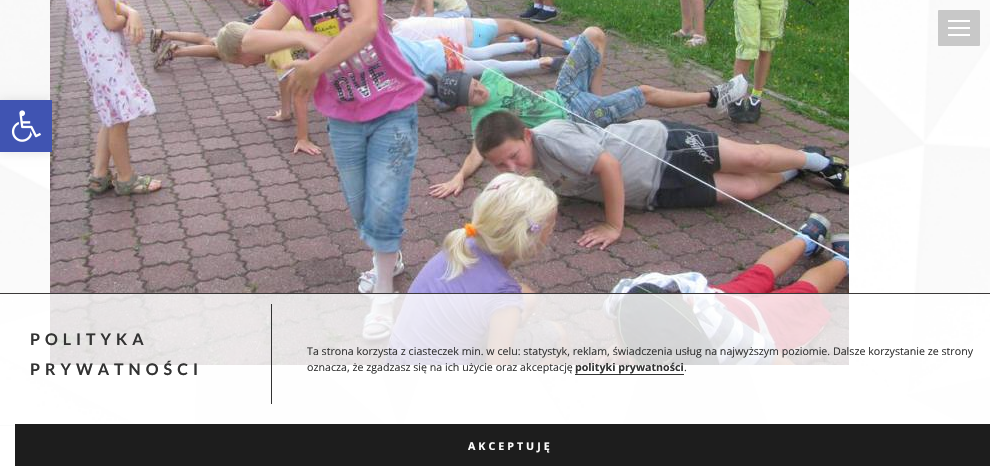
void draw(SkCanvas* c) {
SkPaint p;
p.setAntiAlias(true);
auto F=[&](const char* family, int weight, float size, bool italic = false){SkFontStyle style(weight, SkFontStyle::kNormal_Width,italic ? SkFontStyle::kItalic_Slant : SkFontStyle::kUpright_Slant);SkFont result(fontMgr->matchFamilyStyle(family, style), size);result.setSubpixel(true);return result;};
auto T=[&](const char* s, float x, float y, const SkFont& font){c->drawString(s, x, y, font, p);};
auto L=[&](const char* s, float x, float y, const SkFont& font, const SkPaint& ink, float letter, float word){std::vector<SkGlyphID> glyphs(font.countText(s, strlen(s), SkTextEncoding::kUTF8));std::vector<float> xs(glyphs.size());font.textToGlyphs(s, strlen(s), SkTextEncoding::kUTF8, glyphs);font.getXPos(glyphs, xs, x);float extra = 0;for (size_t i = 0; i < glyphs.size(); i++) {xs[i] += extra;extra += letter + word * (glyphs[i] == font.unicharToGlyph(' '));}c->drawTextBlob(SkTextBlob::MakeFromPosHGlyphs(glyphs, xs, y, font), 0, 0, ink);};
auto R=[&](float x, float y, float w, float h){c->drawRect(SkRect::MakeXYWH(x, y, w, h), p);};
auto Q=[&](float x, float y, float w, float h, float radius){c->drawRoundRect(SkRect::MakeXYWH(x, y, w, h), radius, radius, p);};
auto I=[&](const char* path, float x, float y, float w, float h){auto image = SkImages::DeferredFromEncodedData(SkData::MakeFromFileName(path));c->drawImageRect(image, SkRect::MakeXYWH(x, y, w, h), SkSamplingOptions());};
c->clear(0xffffffff);
I("1.png",0,0,990,425);
I("2.png",50,0,799,365);
p.setColor(0xffc8c8c8);
Q(938,10,42,36,1);
p.setColor(0xffffffff);
R(948,20,22,2);
R(948,27,22,2);
R(948,34,22,2);
p.setColor(0xffe6e7e9);
R(0,425,15,1);
p.setColor(0x1a000000);
p.setMaskFilter(SkMaskFilter::MakeBlur(kNormal_SkBlurStyle, 5));
c->drawRect(SkRect::MakeXYWH(0,100,52,52),p);
p.setMaskFilter(nullptr);
p.setColor(0xff4054b2);
R(0,100,52,52);
I("3.png",11,110,30,32);
p.setColor(0xccffffff);
R(0,294,990,132);
p.setColor(0xff3b3939);
R(0,293,990,1);
p.setColor(0xff333333);
R(271,304,1,100);
auto f1 = F("Lato",700,16);
L("POLITYKA",30,345,f1,p,5,0);
L("PRYWATNOŚCI",30,375,f1,p,5,0);
auto f2 = F("Open Sans",400,10.67);
T("Ta strona korzysta z ciasteczek min. w celu: statystyk, reklam, świadczenia usług na najwyższym poziomie. Dalsze korzystanie ze strony",307,355,f2);
T("oznacza, że zgadzasz się na ich użycie oraz akceptację",307,371,f2);
auto f3 = F("Open Sans",700,10.67);
T("polityki prywatności",575,371,f3);
R(575,374,109,1);
T(".",684,371,f2);
p.setColor(0xff1d1d1d);
R(15,424,975,42);
p.setColor(0xffffffff);
L("AKCEPTUJĘ",468,450,f3,p,3,0);
}
